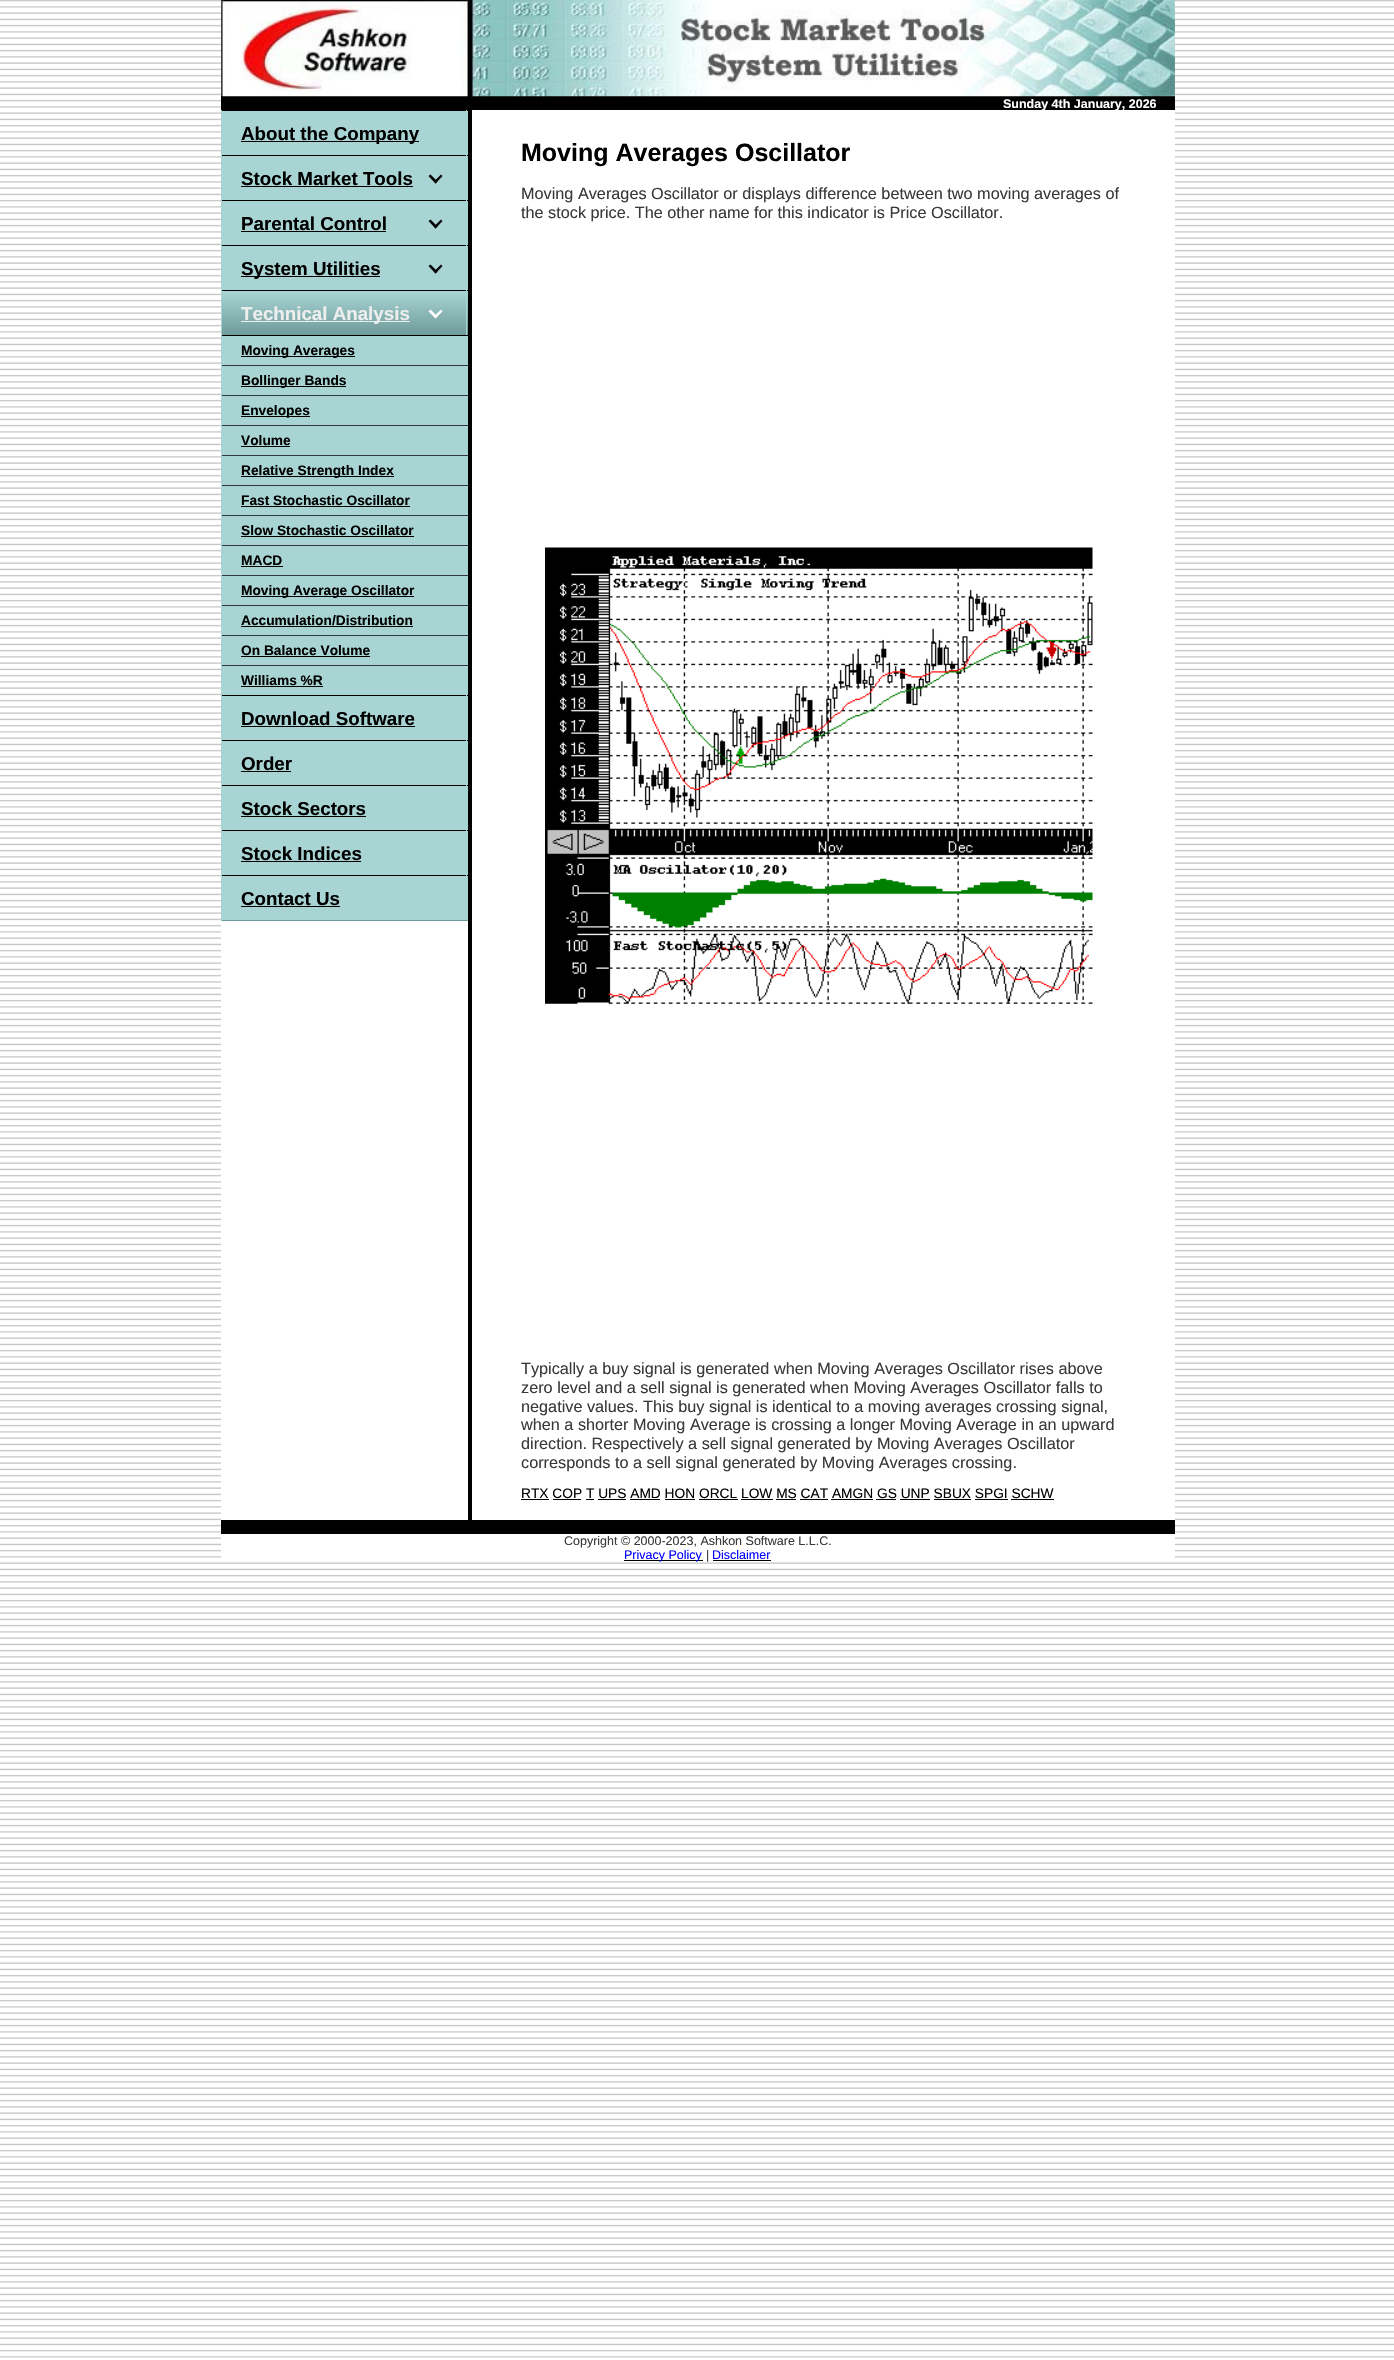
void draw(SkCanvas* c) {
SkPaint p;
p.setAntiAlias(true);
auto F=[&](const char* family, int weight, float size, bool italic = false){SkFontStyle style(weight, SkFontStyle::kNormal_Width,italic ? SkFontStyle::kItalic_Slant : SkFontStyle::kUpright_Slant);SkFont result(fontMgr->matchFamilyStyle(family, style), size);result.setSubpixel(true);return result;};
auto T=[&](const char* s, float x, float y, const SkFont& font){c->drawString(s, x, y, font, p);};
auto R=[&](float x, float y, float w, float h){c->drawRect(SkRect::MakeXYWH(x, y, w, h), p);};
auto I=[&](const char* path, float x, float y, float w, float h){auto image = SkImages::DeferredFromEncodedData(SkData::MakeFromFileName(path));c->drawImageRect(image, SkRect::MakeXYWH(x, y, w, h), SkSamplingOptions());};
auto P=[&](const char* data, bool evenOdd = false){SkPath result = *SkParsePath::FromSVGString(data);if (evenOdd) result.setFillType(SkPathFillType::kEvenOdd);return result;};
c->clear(0xffffffff);
I("1.png",0,0,1394,2358);
p.setColor(0xffffffff);
R(221,0,954,1558);
p.setColor(0xff000000);
R(221,96,954,14);
I("2.png",221,0,954,97);
auto f1 = F("Liberation Sans",700,12.5);
p.setColor(0xffffffff);
T("Sunday 4th January, 2026",1003,108,f1);
p.setColor(0xffa9d4d4);
R(221,111,247,809);
p.setColor(0xff000000);
R(221,110,247,1);
p.setColor(0xffa9d4d4);
R(466,110,1,1);
R(221,110,1,1);
p.setColor(0xff000000);
R(241,141,178,1);
auto f2 = F("Liberation Sans",700,18.75);
T("About the Company",241,140,f2);
R(221,155,247,1);
p.setColor(0xffa9d4d4);
R(466,155,1,1);
R(221,155,1,1);
p.setColor(0xff000000);
T("Stock Market Tools",241,185,f2);
R(241,186,172,1);
p.setColor(0xffa1c9c9);
c->drawPath(P("M435.5 184.5l-7-7l2-2l5 5.5z"),p);
p.setColor(0x0d000000);
c->drawPath(P("M442.5 177.5l-7 7v-3.5l5.5-5.5z"),p);
p.setColor(0xff000000);
c->drawPath(P("M435.5 183.5l-7-7.5l2-1.5l7 7z"),p);
c->drawPath(P("M435.5 183.5l-1.5-2l7-7l1.5 1.5z"),p);
R(221,200,247,1);
p.setColor(0xffa9d4d4);
R(466,200,1,1);
R(221,200,1,1);
p.setColor(0xff000000);
T("Parental Control",241,230,f2);
R(241,231,145,1);
p.setColor(0xffa1c9c9);
c->drawPath(P("M435.5 229.5l-7-7l2-2l5 5.5z"),p);
p.setColor(0x0d000000);
c->drawPath(P("M442.5 222.5l-7 7v-3.5l5.5-5.5z"),p);
p.setColor(0xff000000);
c->drawPath(P("M435.5 228.5l-7-7.5l2-1.5l7 7z"),p);
c->drawPath(P("M435.5 228.5l-1.5-2l7-7l1.5 1.5z"),p);
R(221,245,247,1);
p.setColor(0xffa9d4d4);
R(466,245,1,1);
R(221,245,1,1);
p.setColor(0xff000000);
R(241,276,139,1);
T("System Utilities",241,275,f2);
p.setColor(0xffa1c9c9);
c->drawPath(P("M435.5 274.5l-7-7l2-2l5 5.5z"),p);
p.setColor(0x0d000000);
c->drawPath(P("M442.5 267.5l-7 7v-3.5l5.5-5.5z"),p);
p.setColor(0xff000000);
c->drawPath(P("M435.5 273.5l-7-7.5l2-1.5l7 7z"),p);
c->drawPath(P("M435.5 273.5l-1.5-2l7-7l1.5 1.5z"),p);
{
const SkColor colors[] = {0xffa9d4d4,0xff709b9b};
const float stops[] = {0,1};
const SkPoint ends[] = {{344,291}, {344,335}};
p.setShader(SkGradientShader::MakeLinear(ends, colors, stops, 2, SkTileMode::kClamp));
p.setAlpha(255);
}
R(222,293,246,42);
p.setShader(nullptr);
p.setColor(0xff000000);
R(221,290,247,1);
p.setColor(0xffa9d4d4);
R(466,290,1,46);
p.setColor(0xff000000);
R(221,335,247,1);
p.setColor(0xffa9d4d4);
R(221,290,1,46);
p.setColor(0xffeeeeee);
R(241,321,169,1);
T("Technical Analysis",241,320,f2);
p.setColor(0x0d000000);
c->drawPath(P("M435.5 319.5l-7-7l2-2l5 5.5z"),p);
c->drawPath(P("M442.5 312.5l-7 7v-3.5l5.5-5.5z"),p);
p.setColor(0xffffffff);
c->drawPath(P("M435.5 318.5l-7-7l2-2l7 7z"),p);
c->drawPath(P("M435.5 318.5l-1.5-2l7-7l1.5 2z"),p);
p.setColor(0xff32373e);
R(221,365,247,1);
p.setColor(0xffa9d4d4);
R(221,365,1,1);
p.setColor(0xff000000);
R(241,356,114,1);
auto f3 = F("Liberation Sans",700,13.75);
T("Moving Averages",241,355,f3);
p.setColor(0xff32373e);
R(221,395,247,1);
p.setColor(0xffa9d4d4);
R(221,395,1,1);
p.setColor(0xff000000);
R(241,386,105,1);
T("Bollinger Bands",241,385,f3);
p.setColor(0xff32373e);
R(221,425,247,1);
p.setColor(0xffa9d4d4);
R(221,425,1,1);
p.setColor(0xff000000);
R(241,416,69,1);
T("Envelopes",241,415,f3);
p.setColor(0xff32373e);
R(221,455,247,1);
p.setColor(0xffa9d4d4);
R(221,455,1,1);
p.setColor(0xff000000);
T("Volume",241,445,f3);
R(241,446,49,1);
p.setColor(0xff32373e);
R(221,485,247,1);
p.setColor(0xffa9d4d4);
R(221,485,1,1);
p.setColor(0xff000000);
R(241,476,153,1);
T("Relative Strength Index",241,475,f3);
p.setColor(0xff32373e);
R(221,515,247,1);
p.setColor(0xffa9d4d4);
R(221,515,1,1);
p.setColor(0xff000000);
T("Fast Stochastic Oscillator",241,505,f3);
R(241,506,169,1);
p.setColor(0xff32373e);
R(221,545,247,1);
p.setColor(0xffa9d4d4);
R(221,545,1,1);
p.setColor(0xff000000);
T("Slow Stochastic Oscillator",241,535,f3);
R(241,536,173,1);
p.setColor(0xff32373e);
R(221,575,247,1);
p.setColor(0xffa9d4d4);
R(221,575,1,1);
p.setColor(0xff000000);
T("MACD",241,565,f3);
R(241,566,42,1);
p.setColor(0xff32373e);
R(221,605,247,1);
p.setColor(0xffa9d4d4);
R(221,605,1,1);
p.setColor(0xff000000);
R(241,596,173,1);
T("Moving Average Oscillator",241,595,f3);
p.setColor(0xff32373e);
R(221,635,247,1);
p.setColor(0xffa9d4d4);
R(221,635,1,1);
p.setColor(0xff000000);
T("Accumulation/Distribution",241,625,f3);
R(241,626,172,1);
p.setColor(0xff32373e);
R(221,665,247,1);
p.setColor(0xffa9d4d4);
R(221,665,1,1);
p.setColor(0xff000000);
T("On Balance Volume",241,655,f3);
R(241,656,129,1);
T("Williams %R",241,685,f3);
R(241,686,82,1);
R(221,695,247,1);
p.setColor(0xffa9d4d4);
R(466,695,1,1);
R(221,695,1,1);
p.setColor(0xff000000);
T("Download Software",241,725,f2);
R(241,726,174,1);
R(221,740,247,1);
p.setColor(0xffa9d4d4);
R(466,740,1,1);
R(221,740,1,1);
p.setColor(0xff000000);
T("Order",241,770,f2);
R(241,771,50,1);
R(221,785,247,1);
p.setColor(0xffa9d4d4);
R(466,785,1,1);
R(221,785,1,1);
p.setColor(0xff000000);
T("Stock Sectors",241,815,f2);
R(241,816,125,1);
R(221,830,247,1);
p.setColor(0xffa9d4d4);
R(466,830,1,1);
R(221,830,1,1);
p.setColor(0xff000000);
T("Stock Indices",241,860,f2);
R(241,861,120,1);
R(221,875,247,1);
p.setColor(0xffa9d4d4);
R(466,875,1,46);
p.setColor(0xff709b9b);
R(221,920,247,1);
p.setColor(0xffa9d4d4);
R(221,875,1,46);
p.setColor(0xff000000);
T("Contact Us",241,905,f2);
R(241,906,99,1);
R(468,110,4,1410);
auto f4 = F("Liberation Sans",700,25);
T("Moving Averages Oscillator",521,161,f4);
auto f5 = F("Liberation Sans",400,16.25);
p.setColor(0xff393939);
T("Moving Averages Oscillator or displays difference between two moving averages of",521,199,f5);
T("the stock price. The other name for this indicator is Price Oscillator.",521,218,f5);
I("3.png",545,547,548,457);
T("Typically a buy signal is generated when Moving Averages Oscillator rises above",521,1374,f5);
T("zero level and a sell signal is generated when Moving Averages Oscillator falls to",521,1393,f5);
T("negative values. This buy signal is identical to a moving averages crossing signal,",521,1412,f5);
T("when a shorter Moving Average is crossing a longer Moving Average in an upward",521,1430,f5);
T("direction. Respectively a sell signal generated by Moving Averages Oscillator",521,1449,f5);
T("corresponds to a sell signal generated by Moving Averages crossing.",521,1468,f5);
auto f6 = F("Liberation Sans",400,13.75);
p.setColor(0xff000000);
T("RTX COP T UPS AMD HON ORCL LOW MS CAT AMGN GS UNP SBUX SPGI SCHW",521,1498,f6);
R(521,1499,28,1);
R(553,1499,28,1);
R(586,1499,8,1);
R(598,1499,28,1);
R(630,1499,30,1);
R(665,1499,30,1);
R(699,1499,39,1);
R(741,1499,32,1);
R(776,1499,20,1);
R(800,1499,28,1);
R(831,1499,42,1);
R(876,1499,20,1);
R(900,1499,30,1);
R(934,1499,37,1);
R(975,1499,33,1);
R(1011,1499,43,1);
R(221,1520,954,14);
auto f7 = F("Liberation Sans",400,12.5);
p.setColor(0xff393939);
T("Copyright © 2000-2023, Ashkon Software L.L.C.",564,1545,f7);
p.setColor(0xff000000);
R(624,1560,79,1);
p.setColor(0xff0000ff);
T("Privacy Policy",624,1559,f7);
p.setColor(0xff393939);
T("|",706,1559,f7);
p.setColor(0xff0000ff);
T("Disclaimer",712,1559,f7);
p.setColor(0xff000000);
R(713,1560,58,1);
}
